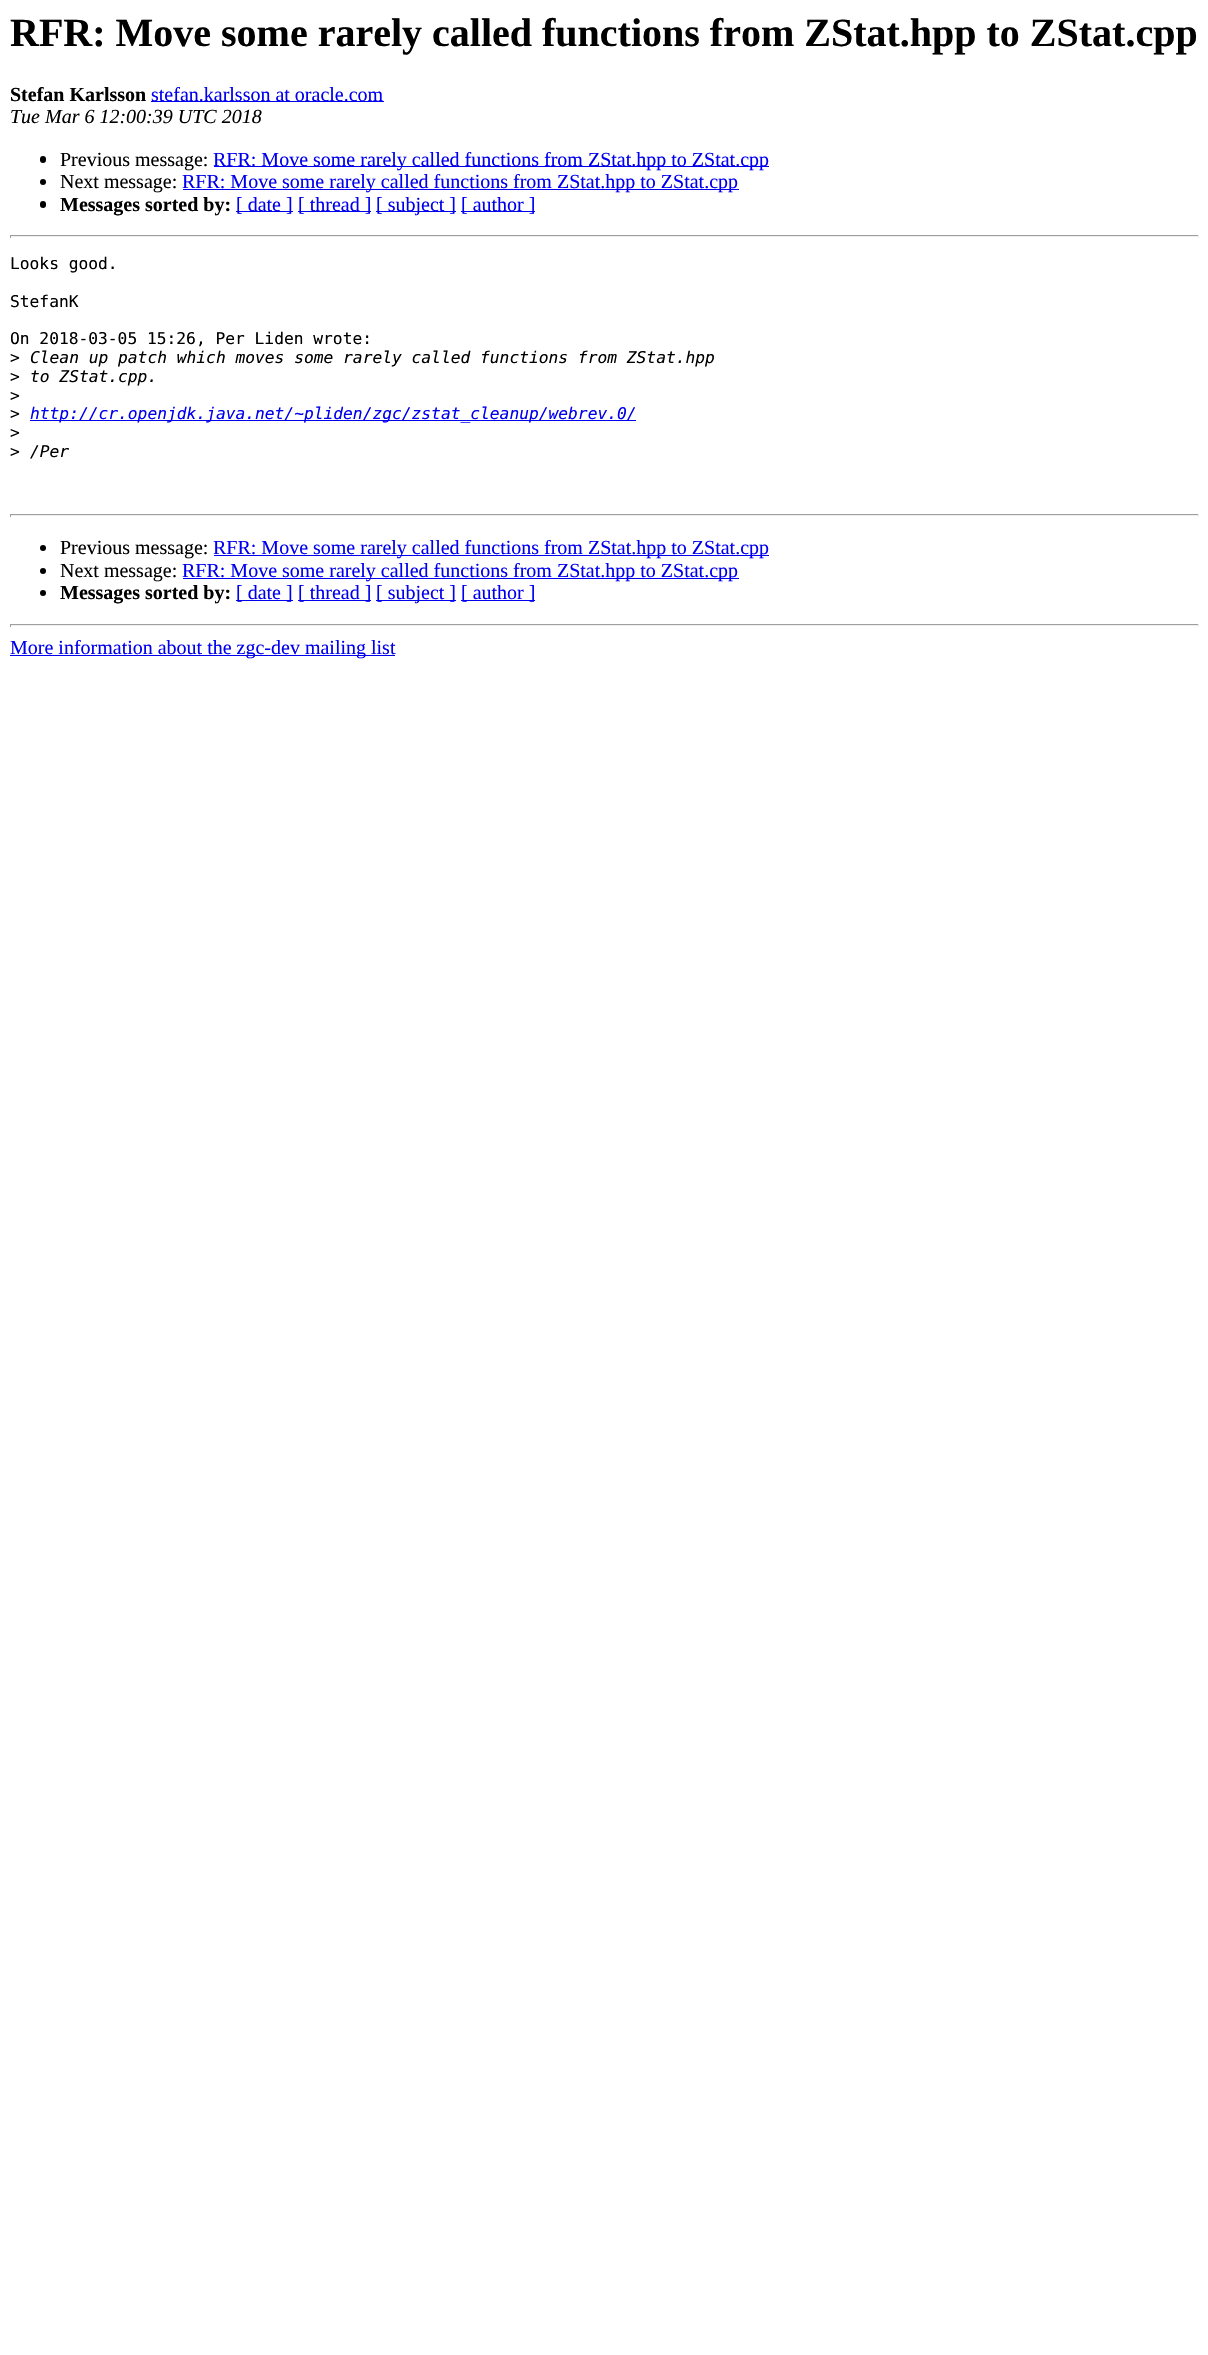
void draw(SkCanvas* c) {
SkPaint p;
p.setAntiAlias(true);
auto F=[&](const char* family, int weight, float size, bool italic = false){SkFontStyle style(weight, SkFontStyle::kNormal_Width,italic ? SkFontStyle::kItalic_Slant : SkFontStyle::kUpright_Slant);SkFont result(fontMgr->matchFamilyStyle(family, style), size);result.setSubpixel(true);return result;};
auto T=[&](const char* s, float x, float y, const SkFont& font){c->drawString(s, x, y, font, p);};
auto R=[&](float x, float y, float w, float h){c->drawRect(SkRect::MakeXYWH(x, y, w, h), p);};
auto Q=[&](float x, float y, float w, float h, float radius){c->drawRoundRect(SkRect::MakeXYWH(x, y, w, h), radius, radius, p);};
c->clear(0xffffffff);
auto f1 = F("Liberation Serif",700,40);
p.setColor(0xff000000);
T("RFR: Move some rarely called functions from ZStat.hpp to ZStat.cpp",10,46,f1);
auto f2 = F("Liberation Serif",700,20);
T("Stefan Karlsson",10,101,f2);
p.setColor(0xff0000ee);
R(151,101,233,1);
auto f3 = F("Liberation Serif",400,20);
T("stefan.karlsson at oracle.com",151,101,f3);
auto f4 = F("Liberation Serif",400,20,true);
p.setColor(0xff000000);
T("Tue Mar 6 12:00:39 UTC 2018",10,123,f4);
Q(40,156,6,7,3);
T("Previous message:",60,166,f3);
p.setColor(0xff0000ee);
R(214,166,555,1);
T("RFR: Move some rarely called functions from ZStat.hpp to ZStat.cpp",213,166,f3);
p.setColor(0xff000000);
c->drawCircle(43,182,3,p);
T("Next message:",60,188,f3);
p.setColor(0xff0000ee);
R(183,189,556,1);
T("RFR: Move some rarely called functions from ZStat.hpp to ZStat.cpp",182,188,f3);
p.setColor(0xff000000);
Q(40,201,6,7,3);
T("Messages sorted by:",60,211,f2);
p.setColor(0xff0000ee);
R(236,211,57,1);
T("[ date ]",236,211,f3);
R(298,211,73,1);
T("[ thread ]",298,211,f3);
R(376,211,80,1);
T("[ subject ]",376,211,f3);
R(461,211,74,1);
T("[ author ]",461,211,f3);
p.setColor(0xff9f9f9f);
R(10,235,1189,1);
p.setColor(0xffeeeeee);
R(1198,235,1,3);
R(10,236,1189,1);
p.setColor(0xff9f9f9f);
R(10,235,1,3);
auto f5 = F("DejaVu Sans Mono",400,16.25);
p.setColor(0xff000000);
T("Looks good.",10,269,f5);
T("StefanK",10,307,f5);
T("On 2018-03-05 15:26, Per Liden wrote:",10,344,f5);
T(">",10,363,f5);
auto f6 = F("DejaVu Sans Mono",400,16.25,true);
T("Clean up patch which moves some rarely called functions from ZStat.hpp",30,363,f6);
T(">",10,382,f5);
T("to ZStat.cpp.",30,382,f6);
T(">",10,401,f5);
T(">",10,419,f5);
p.setColor(0xff0000ee);
R(30,420,606,1);
T("http://cr.openjdk.java.net/~pliden/zgc/zstat_cleanup/webrev.0/",30,419,f6);
p.setColor(0xff000000);
T(">",10,438,f5);
T(">",10,457,f5);
T("/Per",30,457,f6);
p.setColor(0xff9f9f9f);
R(10,514,1189,1);
p.setColor(0xffeeeeee);
R(1198,514,1,3);
R(10,515,1189,1);
p.setColor(0xff9f9f9f);
R(10,514,1,3);
p.setColor(0xff000000);
c->drawCircle(43,548,3,p);
T("Previous message:",60,554,f3);
p.setColor(0xff0000ee);
R(214,555,555,1);
T("RFR: Move some rarely called functions from ZStat.hpp to ZStat.cpp",213,554,f3);
p.setColor(0xff000000);
c->drawCircle(43,571,3,p);
T("Next message:",60,577,f3);
p.setColor(0xff0000ee);
R(183,578,556,1);
T("RFR: Move some rarely called functions from ZStat.hpp to ZStat.cpp",182,577,f3);
p.setColor(0xff000000);
c->drawCircle(43,593,3,p);
T("Messages sorted by:",60,599,f2);
p.setColor(0xff0000ee);
R(236,600,57,1);
T("[ date ]",236,599,f3);
R(298,600,73,1);
T("[ thread ]",298,599,f3);
R(376,600,80,1);
T("[ subject ]",376,599,f3);
R(461,600,74,1);
T("[ author ]",461,599,f3);
p.setColor(0xff9f9f9f);
R(10,624,1189,1);
p.setColor(0xffeeeeee);
R(1198,624,1,3);
R(10,625,1189,1);
p.setColor(0xff9f9f9f);
R(10,624,1,3);
p.setColor(0xff0000ee);
R(10,655,385,1);
T("More information about the zgc-dev mailing list",10,654,f3);
}
